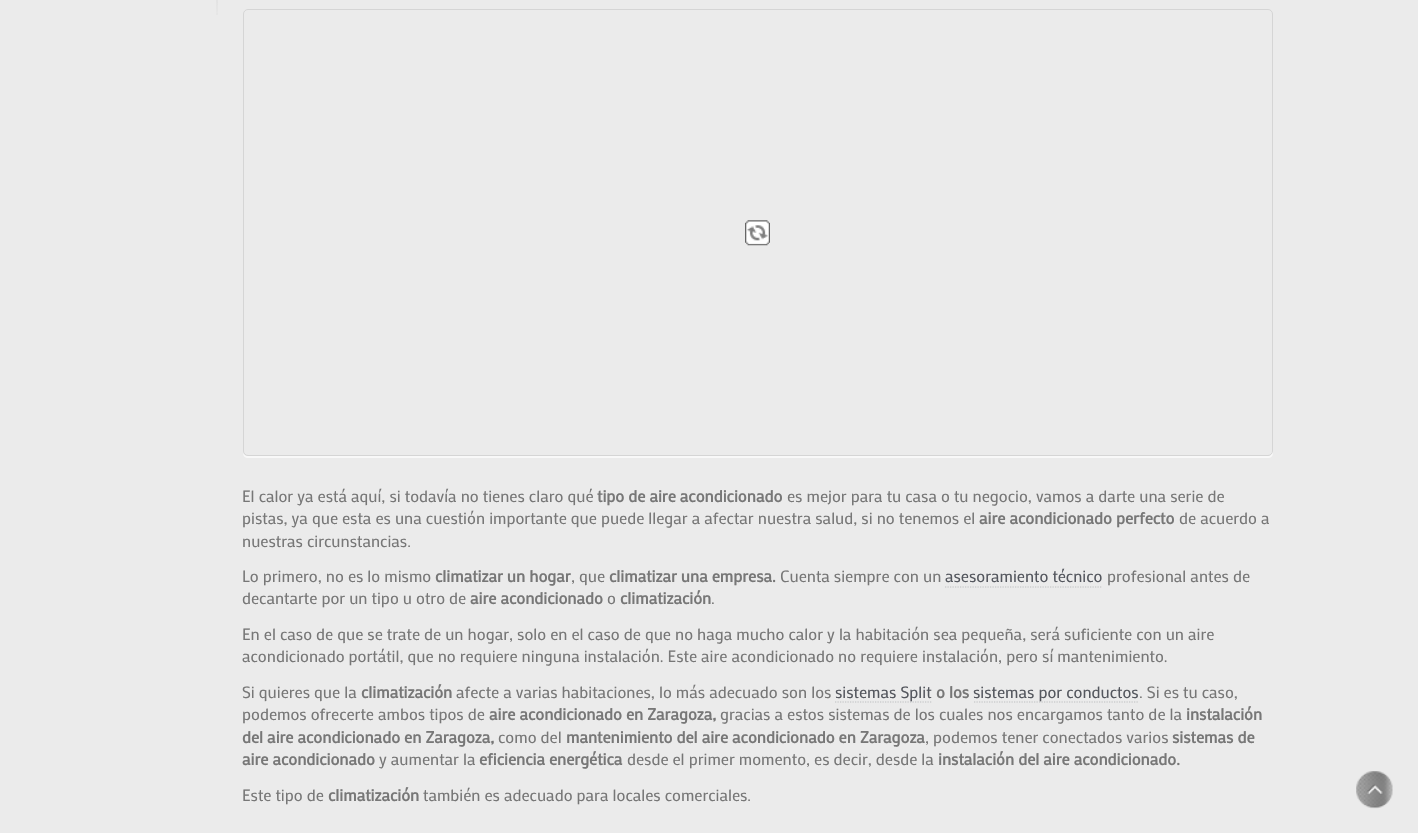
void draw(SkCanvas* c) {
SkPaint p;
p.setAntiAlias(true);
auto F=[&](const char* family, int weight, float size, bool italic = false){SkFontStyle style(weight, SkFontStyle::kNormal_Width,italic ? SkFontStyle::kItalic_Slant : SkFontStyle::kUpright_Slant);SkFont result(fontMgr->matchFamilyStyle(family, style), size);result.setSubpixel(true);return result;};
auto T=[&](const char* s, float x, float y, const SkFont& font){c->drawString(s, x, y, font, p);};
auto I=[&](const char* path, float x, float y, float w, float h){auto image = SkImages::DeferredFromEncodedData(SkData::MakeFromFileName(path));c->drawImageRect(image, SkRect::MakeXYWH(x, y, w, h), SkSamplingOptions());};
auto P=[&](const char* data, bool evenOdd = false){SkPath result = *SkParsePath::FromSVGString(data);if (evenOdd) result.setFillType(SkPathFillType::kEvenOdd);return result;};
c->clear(0xffebebeb);
I("1.png",216,0,2,15);
p.setColor(0xfff8f8f8);
c->drawPath(P("M243 453c0 3 2 5 5 5h1020c3 0 5-2 5-5v-438l-1-2v438c0 3-2 5-4 5h-1020c-2 0-4-1-5-3z"),p);
I("2.png",745,220,25,26);
p.setStroke(true);
p.setStrokeWidth(1);
p.setColor(0xffd5d5d5);
c->drawRoundRect(SkRect::MakeXYWH(243.5,9.5,1029,446),4.5,4.5,p);
auto f1 = F("Mako",400,16.25);
p.setStroke(false);
p.setColor(0xff777777);
T("El calor ya está aquí, si todavía no tienes claro qué",242,502,f1);
auto f2 = F("Mako",700,16.25);
T("tipo de aire acondicionado",597,502,f2);
T("es mejor para tu casa o tu negocio, vamos a darte una serie de",787,502,f1);
T("pistas, ya que esta es una cuestión importante que puede llegar a afectar nuestra salud, si no tenemos el",242,524,f1);
T("aire acondicionado perfecto",979,524,f2);
T("de acuerdo a",1179,524,f1);
T("nuestras circunstancias.",242,547,f1);
T("Lo primero, no es lo mismo",242,582,f1);
T("climatizar un hogar",435,582,f2);
T(", que",571,582,f1);
T("climatizar una empresa.",609,582,f2);
T("Cuenta siempre con un",780,582,f1);
p.setColor(0xff54575e);
T("asesoramiento técnico",945,582,f1);
p.setStroke(true);
p.setStrokeWidth(1.2);
p.setColor(0xffbebfc1);
p.setPathEffect(SkDashPathEffect::Make({{1.25f,1.25f}}, 0));
c->drawPath(P("M945 587h157.5"),p);
p.setPathEffect(nullptr);
p.setStroke(false);
p.setColor(0xff777777);
T("profesional antes de",1107,582,f1);
T("decantarte por un tipo u otro de",242,604,f1);
T("aire acondicionado",470,604,f2);
T("o",607,604,f1);
T("climatización",620,604,f2);
T(".",711,604,f1);
T("En el caso de que se trate de un hogar, solo en el caso de que no haga mucho calor y la habitación sea pequeña, será suficiente con un aire",242,640,f1);
T("acondicionado portátil, que no requiere ninguna instalación. Este aire acondicionado no requiere instalación, pero sí mantenimiento.",242,662,f1);
T("Si quieres que la",242,698,f1);
T("climatización",361,698,f2);
T("afecte a varias habitaciones, lo más adecuado son los",456,698,f1);
p.setStroke(true);
p.setColor(0xffbebfc1);
p.setPathEffect(SkDashPathEffect::Make({{1.25f,1.25f}}, 0));
c->drawPath(P("M835 702h97.5"),p);
p.setPathEffect(nullptr);
p.setStroke(false);
p.setColor(0xff54575e);
T("sistemas Split",835,698,f1);
p.setColor(0xff777777);
T("o los",936,698,f2);
p.setStroke(true);
p.setColor(0xffbebfc1);
p.setPathEffect(SkDashPathEffect::Make({{1.25f,1.25f}}, 0));
c->drawPath(P("M974 702h165"),p);
p.setPathEffect(nullptr);
p.setStroke(false);
p.setColor(0xff54575e);
T("sistemas por conductos",973,698,f1);
p.setColor(0xff777777);
T(". Si es tu caso,",1139,698,f1);
T("podemos ofrecerte ambos tipos de",242,720,f1);
T("aire acondicionado en Zaragoza,",489,720,f2);
T("gracias a estos sistemas de los cuales nos encargamos tanto de la",720,720,f1);
T("instalación",1186,720,f2);
T("del aire acondicionado en Zaragoza,",242,743,f2);
T("como del",498,743,f1);
T("mantenimiento del aire acondicionado en Zaragoza",566,743,f2);
T(", podemos tener conectados varios",925,743,f1);
T("sistemas de",1172,743,f2);
T("aire acondicionado",242,765,f2);
T("y aumentar la",379,765,f1);
T("eficiencia energética",479,765,f2);
T("desde el primer momento, es decir, desde la",627,765,f1);
T("instalación del aire acondicionado.",938,765,f2);
T("Este tipo de",242,801,f1);
T("climatización",328,801,f2);
T("también es adecuado para locales comerciales.",423,801,f1);
I("3.png",1356,771,37,38);
}
